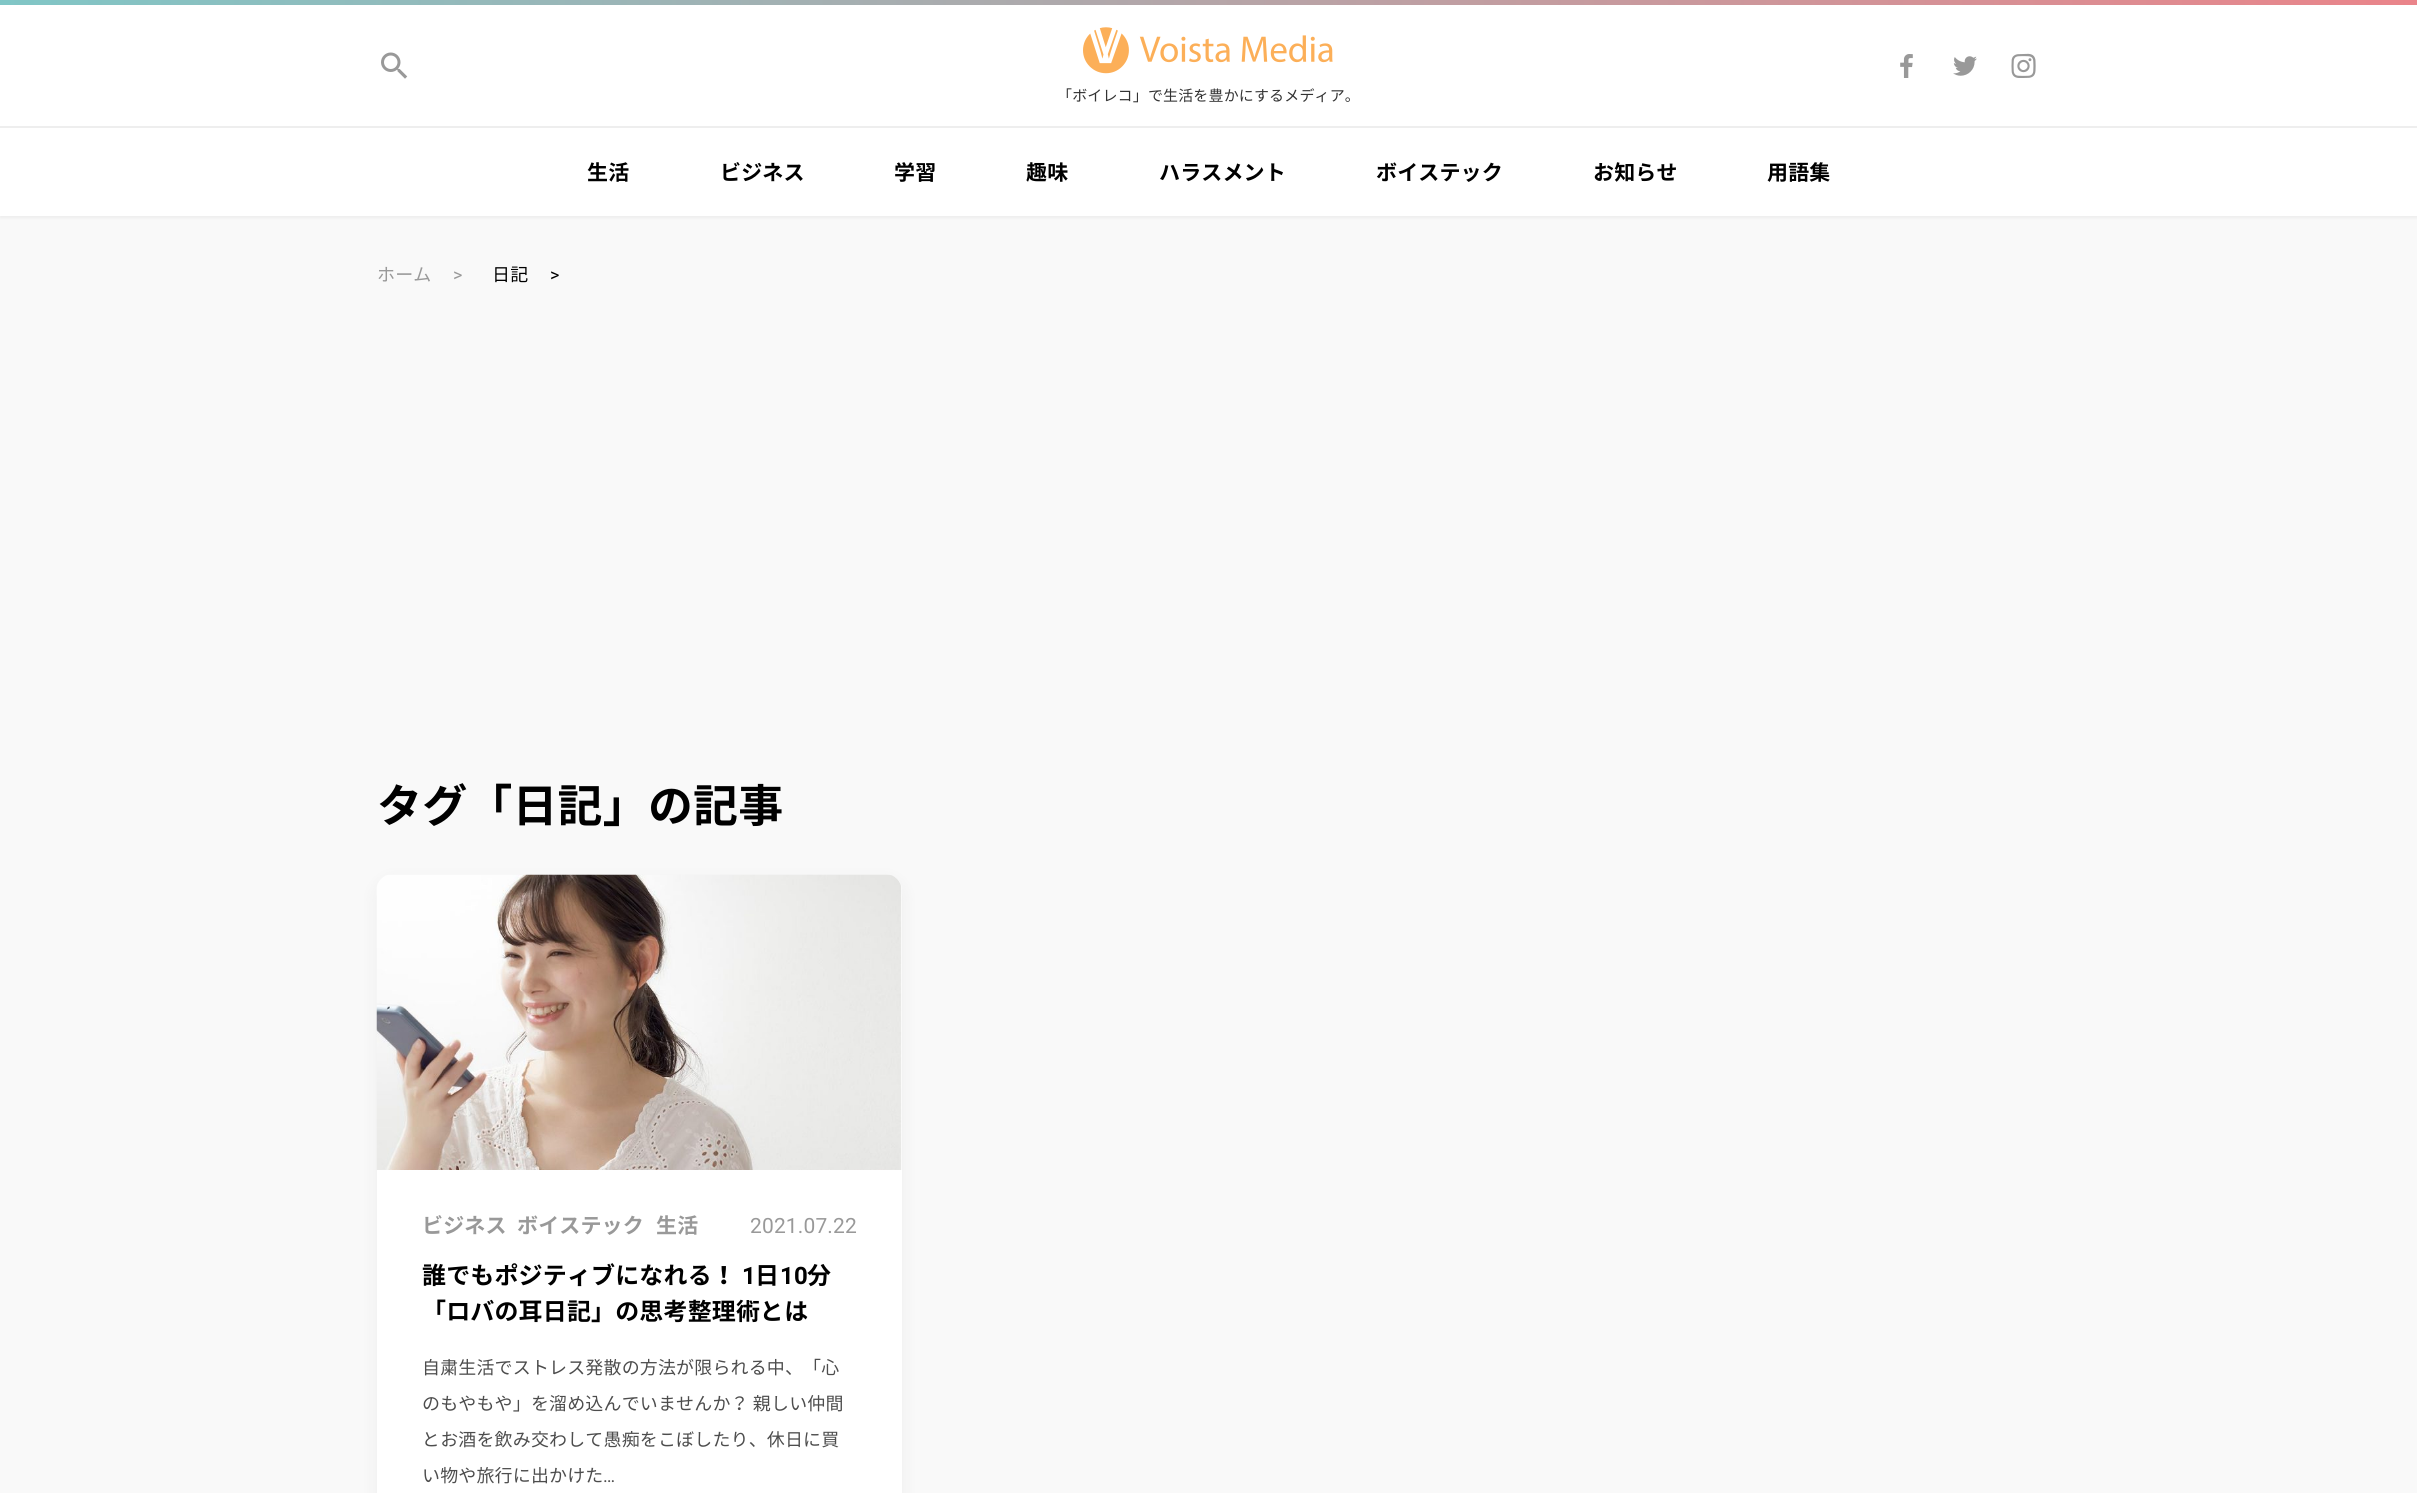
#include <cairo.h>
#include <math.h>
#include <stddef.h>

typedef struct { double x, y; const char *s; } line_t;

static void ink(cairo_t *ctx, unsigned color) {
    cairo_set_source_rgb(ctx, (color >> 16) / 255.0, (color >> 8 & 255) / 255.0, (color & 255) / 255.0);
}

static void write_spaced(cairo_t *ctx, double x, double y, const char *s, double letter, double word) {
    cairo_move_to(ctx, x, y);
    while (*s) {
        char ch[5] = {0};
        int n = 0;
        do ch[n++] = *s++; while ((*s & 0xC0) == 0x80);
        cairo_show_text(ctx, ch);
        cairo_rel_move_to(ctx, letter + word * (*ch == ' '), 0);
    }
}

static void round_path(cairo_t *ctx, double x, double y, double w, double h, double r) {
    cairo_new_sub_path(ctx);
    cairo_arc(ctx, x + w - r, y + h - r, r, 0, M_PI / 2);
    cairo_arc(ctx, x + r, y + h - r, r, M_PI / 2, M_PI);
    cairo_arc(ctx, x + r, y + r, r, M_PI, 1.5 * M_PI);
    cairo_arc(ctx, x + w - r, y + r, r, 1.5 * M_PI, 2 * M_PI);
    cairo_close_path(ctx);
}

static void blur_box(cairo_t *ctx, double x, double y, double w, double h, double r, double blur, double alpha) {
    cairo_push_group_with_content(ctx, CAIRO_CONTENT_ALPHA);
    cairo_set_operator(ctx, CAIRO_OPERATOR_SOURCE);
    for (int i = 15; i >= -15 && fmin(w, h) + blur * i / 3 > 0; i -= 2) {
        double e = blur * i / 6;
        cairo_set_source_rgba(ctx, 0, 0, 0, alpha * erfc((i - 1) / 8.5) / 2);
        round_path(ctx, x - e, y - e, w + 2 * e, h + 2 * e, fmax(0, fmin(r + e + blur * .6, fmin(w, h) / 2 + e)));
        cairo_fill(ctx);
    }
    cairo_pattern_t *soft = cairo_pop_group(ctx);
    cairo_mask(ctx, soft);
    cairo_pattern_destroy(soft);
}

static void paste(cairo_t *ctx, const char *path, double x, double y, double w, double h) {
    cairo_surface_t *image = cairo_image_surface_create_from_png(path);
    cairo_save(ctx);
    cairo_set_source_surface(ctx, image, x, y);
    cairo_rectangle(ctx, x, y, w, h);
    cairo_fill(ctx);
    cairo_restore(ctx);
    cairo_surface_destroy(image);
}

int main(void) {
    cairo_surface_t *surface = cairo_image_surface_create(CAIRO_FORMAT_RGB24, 2417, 1493);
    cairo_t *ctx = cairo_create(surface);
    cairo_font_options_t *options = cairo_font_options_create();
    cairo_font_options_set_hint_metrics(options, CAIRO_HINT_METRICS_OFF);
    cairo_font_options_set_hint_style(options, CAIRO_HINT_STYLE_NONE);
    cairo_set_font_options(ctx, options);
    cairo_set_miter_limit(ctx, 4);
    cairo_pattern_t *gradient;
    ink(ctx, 0xF9F9F9);
    cairo_paint(ctx);
    ink(ctx, 0x000000);
    blur_box(ctx, 0, 2, 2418, 216, 0, 1.5, 0.05);
    ink(ctx, 0xFFFFFF);
    cairo_rectangle(ctx, 0, 5, 2417, 211);
    cairo_fill(ctx);
    gradient = cairo_pattern_create_linear(0, 2.3, 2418, 2.2);
    cairo_pattern_add_color_stop_rgba(gradient, 0, 0.502, 0.776, 0.776, 1);
    cairo_pattern_add_color_stop_rgba(gradient, 1, 0.918, 0.518, 0.541, 1);
    cairo_set_source(ctx, gradient);
    cairo_pattern_destroy(gradient);
    cairo_rectangle(ctx, 0, 0, 2417, 5);
    cairo_fill(ctx);
    paste(ctx, "media/1.png", 381, 52, 27, 27);
    paste(ctx, "media/2.png", 1900, 54, 13, 24);
    paste(ctx, "media/3.png", 1953, 56, 24, 20);
    paste(ctx, "media/4.png", 2011, 53, 25, 25);
    paste(ctx, "media/5.png", 1083, 27, 250, 47);
    cairo_select_font_face(ctx, "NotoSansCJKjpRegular", CAIRO_FONT_SLANT_NORMAL, CAIRO_FONT_WEIGHT_NORMAL);
    cairo_set_font_size(ctx, 15);
    ink(ctx, 0x333333);
    write_spaced(ctx, 1057, 101, "「ボイレコ」で生活を豊かにするメディア。", 0.15, 0);
    ink(ctx, 0xEEEEEE);
    cairo_rectangle(ctx, 0, 126, 2417, 2);
    cairo_fill(ctx);
    cairo_select_font_face(ctx, "Noto Sans CJK JP", CAIRO_FONT_SLANT_NORMAL, CAIRO_FONT_WEIGHT_BOLD);
    cairo_set_font_size(ctx, 21);
    ink(ctx, 0x000000);
    {
        static const line_t items[] = {
            {587, 180, "生活"},
            {720, 180, "ビジネス"},
            {894, 180, "学習"},
            {1026, 180, "趣味"},
            {1159, 180, "ハラスメント"},
            {1376, 180, "ボイステック"},
            {1593, 180, "お知らせ"},
            {1767, 180, "用語集"},
        };
        for (size_t i = 0; i < sizeof items / sizeof *items; i++) {
            write_spaced(ctx, items[i].x, items[i].y, items[i].s, 0.15, 0);
        }
    }
    cairo_select_font_face(ctx, "NotoSansCJKjpRegular", CAIRO_FONT_SLANT_NORMAL, CAIRO_FONT_WEIGHT_NORMAL);
    cairo_set_font_size(ctx, 18);
    ink(ctx, 0x999999);
    write_spaced(ctx, 377, 281, "ホーム", 0.15, 0);
    cairo_select_font_face(ctx, "Roboto", CAIRO_FONT_SLANT_NORMAL, CAIRO_FONT_WEIGHT_NORMAL);
    write_spaced(ctx, 453, 281, ">", 0.15, 0);
    cairo_select_font_face(ctx, "NotoSansCJKjpRegular", CAIRO_FONT_SLANT_NORMAL, CAIRO_FONT_WEIGHT_NORMAL);
    ink(ctx, 0x000000);
    write_spaced(ctx, 492, 281, "日記", 0.15, 0);
    cairo_select_font_face(ctx, "Roboto", CAIRO_FONT_SLANT_NORMAL, CAIRO_FONT_WEIGHT_NORMAL);
    write_spaced(ctx, 550, 281, ">", 0.15, 0);
    cairo_select_font_face(ctx, "Noto Sans CJK JP", CAIRO_FONT_SLANT_NORMAL, CAIRO_FONT_WEIGHT_BOLD);
    cairo_set_font_size(ctx, 45);
    write_spaced(ctx, 377, 822, "タグ「日記」の記事", 0.15, 0);
    ink(ctx, 0x000000);
    blur_box(ctx, 377, 881, 525, 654, 15, 9, 0.05);
    ink(ctx, 0xFFFFFF);
    round_path(ctx, 377, 875, 525, 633, 15);
    cairo_fill(ctx);
    paste(ctx, "media/6.png", 376, 874, 526, 296);
    cairo_set_font_size(ctx, 21);
    ink(ctx, 0x999999);
    {
        static const line_t items[] = {
            {422, 1233, "ビジネス"},
            {517, 1233, "ボイステック"},
            {656, 1233, "生活"},
        };
        for (size_t i = 0; i < sizeof items / sizeof *items; i++) {
            write_spaced(ctx, items[i].x, items[i].y, items[i].s, 0.15, 0);
        }
    }
    cairo_select_font_face(ctx, "Roboto", CAIRO_FONT_SLANT_NORMAL, CAIRO_FONT_WEIGHT_NORMAL);
    write_spaced(ctx, 750, 1233, "2021.07.22", 0.15, 0);
    cairo_select_font_face(ctx, "Noto Sans CJK JP", CAIRO_FONT_SLANT_NORMAL, CAIRO_FONT_WEIGHT_BOLD);
    cairo_set_font_size(ctx, 24);
    ink(ctx, 0x000000);
    write_spaced(ctx, 422, 1284, "誰でもポジティブになれる！", 0.15, 0);
    cairo_select_font_face(ctx, "Roboto", CAIRO_FONT_SLANT_NORMAL, CAIRO_FONT_WEIGHT_BOLD);
    write_spaced(ctx, 742, 1284, "1", 0.15, 0);
    cairo_select_font_face(ctx, "Noto Sans CJK JP", CAIRO_FONT_SLANT_NORMAL, CAIRO_FONT_WEIGHT_BOLD);
    write_spaced(ctx, 755, 1284, "日", 0.15, 0);
    cairo_select_font_face(ctx, "Roboto", CAIRO_FONT_SLANT_NORMAL, CAIRO_FONT_WEIGHT_BOLD);
    write_spaced(ctx, 780, 1284, "10", 0.15, 0);
    cairo_select_font_face(ctx, "Noto Sans CJK JP", CAIRO_FONT_SLANT_NORMAL, CAIRO_FONT_WEIGHT_BOLD);
    write_spaced(ctx, 807, 1284, "分", 0.15, 0);
    write_spaced(ctx, 422, 1320, "「ロバの耳日記」の思考整理術とは", 0.15, 0);
    cairo_select_font_face(ctx, "NotoSansCJKjpRegular", CAIRO_FONT_SLANT_NORMAL, CAIRO_FONT_WEIGHT_NORMAL);
    cairo_set_font_size(ctx, 18);
    ink(ctx, 0x4D4D4D);
    {
        static const line_t items[] = {
            {422, 1374, "自粛生活でストレス発散の方法が限られる中、「心"},
            {422, 1410, "のもやもや」を溜め込んでいませんか？ 親しい仲間"},
            {422, 1446, "とお酒を飲み交わして愚痴をこぼしたり、休日に買"},
            {422, 1482, "い物や旅行に出かけた"},
        };
        for (size_t i = 0; i < sizeof items / sizeof *items; i++) {
            write_spaced(ctx, items[i].x, items[i].y, items[i].s, 0.15, 0);
        }
    }
    cairo_select_font_face(ctx, "Roboto", CAIRO_FONT_SLANT_NORMAL, CAIRO_FONT_WEIGHT_NORMAL);
    write_spaced(ctx, 603, 1482, "…", 0.15, 0);
    cairo_surface_write_to_png(surface, "image.png");
    cairo_font_options_destroy(options);
    cairo_destroy(ctx);
    cairo_surface_destroy(surface);
    return 0;
}
